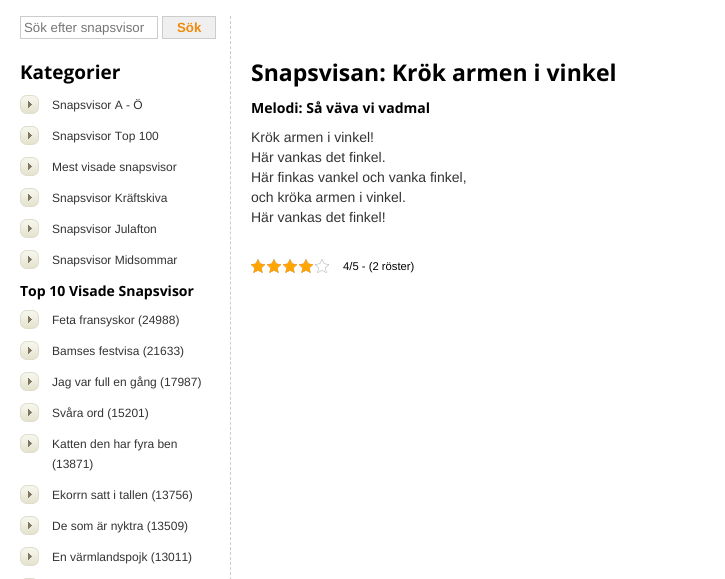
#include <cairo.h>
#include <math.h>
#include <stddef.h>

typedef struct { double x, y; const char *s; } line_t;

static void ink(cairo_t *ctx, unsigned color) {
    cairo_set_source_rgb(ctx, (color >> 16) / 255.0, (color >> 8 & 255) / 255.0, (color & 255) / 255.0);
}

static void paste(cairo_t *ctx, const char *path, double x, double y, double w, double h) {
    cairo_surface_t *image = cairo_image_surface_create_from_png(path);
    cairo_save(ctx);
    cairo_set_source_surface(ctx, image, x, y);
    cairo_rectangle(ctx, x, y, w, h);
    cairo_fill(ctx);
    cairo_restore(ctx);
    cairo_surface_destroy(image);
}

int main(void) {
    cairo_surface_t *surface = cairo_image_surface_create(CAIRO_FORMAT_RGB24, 725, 579);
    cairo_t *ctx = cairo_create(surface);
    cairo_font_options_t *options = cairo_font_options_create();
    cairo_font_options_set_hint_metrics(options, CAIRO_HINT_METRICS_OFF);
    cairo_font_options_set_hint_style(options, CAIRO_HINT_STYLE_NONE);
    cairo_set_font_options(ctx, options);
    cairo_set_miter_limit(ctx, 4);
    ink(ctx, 0xFFFFFF);
    cairo_paint(ctx);
    cairo_new_path(ctx);
    cairo_move_to(ctx, 230.5, 16);
    cairo_line_to(ctx, 230.5, 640);
    ink(ctx, 0xCCCCCC);
    cairo_set_line_width(ctx, 1);
    cairo_set_dash(ctx, (double[]){3, 2.01}, 2, 0);
    cairo_stroke(ctx);
    cairo_rectangle(ctx, 20.5, 16.5, 137, 22);
    cairo_set_dash(ctx, NULL, 0, 0);
    cairo_stroke(ctx);
    cairo_select_font_face(ctx, "Liberation Sans", CAIRO_FONT_SLANT_NORMAL, CAIRO_FONT_WEIGHT_NORMAL);
    cairo_set_font_size(ctx, 13.25);
    ink(ctx, 0x757575);
    cairo_move_to(ctx, 24, 32);
    cairo_show_text(ctx, "Sök efter snapsvisor");
    ink(ctx, 0xEFEFEF);
    cairo_rectangle(ctx, 162.5, 16.5, 53, 22);
    cairo_fill_preserve(ctx);
    ink(ctx, 0xCCCCCC);
    cairo_stroke(ctx);
    cairo_select_font_face(ctx, "Liberation Sans", CAIRO_FONT_SLANT_NORMAL, CAIRO_FONT_WEIGHT_BOLD);
    ink(ctx, 0xF08A0A);
    cairo_move_to(ctx, 177, 32);
    cairo_show_text(ctx, "Sök");
    cairo_select_font_face(ctx, "Open Sans", CAIRO_FONT_SLANT_NORMAL, CAIRO_FONT_WEIGHT_BOLD);
    cairo_set_font_size(ctx, 19);
    ink(ctx, 0x000000);
    cairo_move_to(ctx, 20, 79);
    cairo_show_text(ctx, "Kategorier");
    paste(ctx, "media/1.png", 20, 95, 19, 19);
    cairo_select_font_face(ctx, "Liberation Sans", CAIRO_FONT_SLANT_NORMAL, CAIRO_FONT_WEIGHT_NORMAL);
    cairo_set_font_size(ctx, 12);
    ink(ctx, 0x333333);
    cairo_move_to(ctx, 52, 109);
    cairo_show_text(ctx, "Snapsvisor A - Ö");
    paste(ctx, "media/1.png", 20, 126, 19, 19);
    cairo_move_to(ctx, 52, 140);
    cairo_show_text(ctx, "Snapsvisor Top 100");
    paste(ctx, "media/1.png", 20, 157, 19, 19);
    cairo_move_to(ctx, 52, 171);
    cairo_show_text(ctx, "Mest visade snapsvisor");
    paste(ctx, "media/1.png", 20, 188, 19, 19);
    cairo_move_to(ctx, 52, 202);
    cairo_show_text(ctx, "Snapsvisor Kräftskiva");
    paste(ctx, "media/1.png", 20, 219, 19, 19);
    cairo_move_to(ctx, 52, 233);
    cairo_show_text(ctx, "Snapsvisor Julafton");
    paste(ctx, "media/1.png", 20, 250, 19, 19);
    cairo_move_to(ctx, 52, 264);
    cairo_show_text(ctx, "Snapsvisor Midsommar");
    cairo_select_font_face(ctx, "Open Sans", CAIRO_FONT_SLANT_NORMAL, CAIRO_FONT_WEIGHT_BOLD);
    cairo_set_font_size(ctx, 14);
    ink(ctx, 0x000000);
    cairo_move_to(ctx, 20, 296);
    cairo_show_text(ctx, "Top 10 Visade Snapsvisor");
    paste(ctx, "media/1.png", 20, 310, 19, 19);
    cairo_select_font_face(ctx, "Liberation Sans", CAIRO_FONT_SLANT_NORMAL, CAIRO_FONT_WEIGHT_NORMAL);
    cairo_set_font_size(ctx, 12);
    ink(ctx, 0x333333);
    cairo_move_to(ctx, 52, 324);
    cairo_show_text(ctx, "Feta fransyskor (24988)");
    paste(ctx, "media/1.png", 20, 341, 19, 19);
    cairo_move_to(ctx, 52, 355);
    cairo_show_text(ctx, "Bamses festvisa (21633)");
    paste(ctx, "media/1.png", 20, 372, 19, 19);
    cairo_move_to(ctx, 52, 386);
    cairo_show_text(ctx, "Jag var full en gång (17987)");
    paste(ctx, "media/1.png", 20, 403, 19, 19);
    cairo_move_to(ctx, 52, 417);
    cairo_show_text(ctx, "Svåra ord (15201)");
    paste(ctx, "media/1.png", 20, 434, 19, 19);
    cairo_move_to(ctx, 52, 448);
    cairo_show_text(ctx, "Katten den har fyra ben");
    cairo_move_to(ctx, 52, 468);
    cairo_show_text(ctx, "(13871)");
    paste(ctx, "media/1.png", 20, 485, 19, 19);
    cairo_move_to(ctx, 52, 499);
    cairo_show_text(ctx, "Ekorrn satt i tallen (13756)");
    paste(ctx, "media/1.png", 20, 516, 19, 19);
    cairo_move_to(ctx, 52, 530);
    cairo_show_text(ctx, "De som är nyktra (13509)");
    paste(ctx, "media/1.png", 20, 547, 19, 19);
    cairo_move_to(ctx, 52, 561);
    cairo_show_text(ctx, "En värmlandspojk (13011)");
    paste(ctx, "media/2.png", 23, 578, 13, 1);
    cairo_select_font_face(ctx, "Open Sans", CAIRO_FONT_SLANT_NORMAL, CAIRO_FONT_WEIGHT_BOLD);
    cairo_set_font_size(ctx, 23);
    ink(ctx, 0x000000);
    cairo_move_to(ctx, 251, 81);
    cairo_show_text(ctx, "Snapsvisan: Krök armen i vinkel");
    cairo_set_font_size(ctx, 14);
    cairo_move_to(ctx, 251, 113);
    cairo_show_text(ctx, "Melodi: Så väva vi vadmal");
    cairo_select_font_face(ctx, "Liberation Sans", CAIRO_FONT_SLANT_NORMAL, CAIRO_FONT_WEIGHT_NORMAL);
    ink(ctx, 0x333333);
    {
        static const line_t items[] = {
            {251, 142, "Krök armen i vinkel!"},
            {251, 162, "Här vankas det finkel."},
            {251, 182, "Här finkas vankel och vanka finkel,"},
            {251, 202, "och kröka armen i vinkel."},
            {251, 222, "Här vankas det finkel!"},
        };
        for (size_t i = 0; i < sizeof items / sizeof *items; i++) {
            cairo_move_to(ctx, items[i].x, items[i].y);
            cairo_show_text(ctx, items[i].s);
        }
    }
    paste(ctx, "media/3.png", 251, 259, 14, 14);
    paste(ctx, "media/3.png", 267, 259, 14, 14);
    paste(ctx, "media/3.png", 283, 259, 14, 14);
    paste(ctx, "media/3.png", 299, 259, 14, 14);
    paste(ctx, "media/3.png", 315, 259, 14, 14);
    paste(ctx, "media/4.png", 251, 259, 14, 14);
    paste(ctx, "media/4.png", 267, 259, 14, 14);
    paste(ctx, "media/4.png", 283, 259, 14, 14);
    paste(ctx, "media/4.png", 299, 259, 14, 14);
    cairo_set_font_size(ctx, 11.25);
    ink(ctx, 0x000000);
    cairo_move_to(ctx, 343, 270);
    cairo_show_text(ctx, "4/5 - (2 röster)");
    cairo_surface_write_to_png(surface, "image.png");
    cairo_font_options_destroy(options);
    cairo_destroy(ctx);
    cairo_surface_destroy(surface);
    return 0;
}
